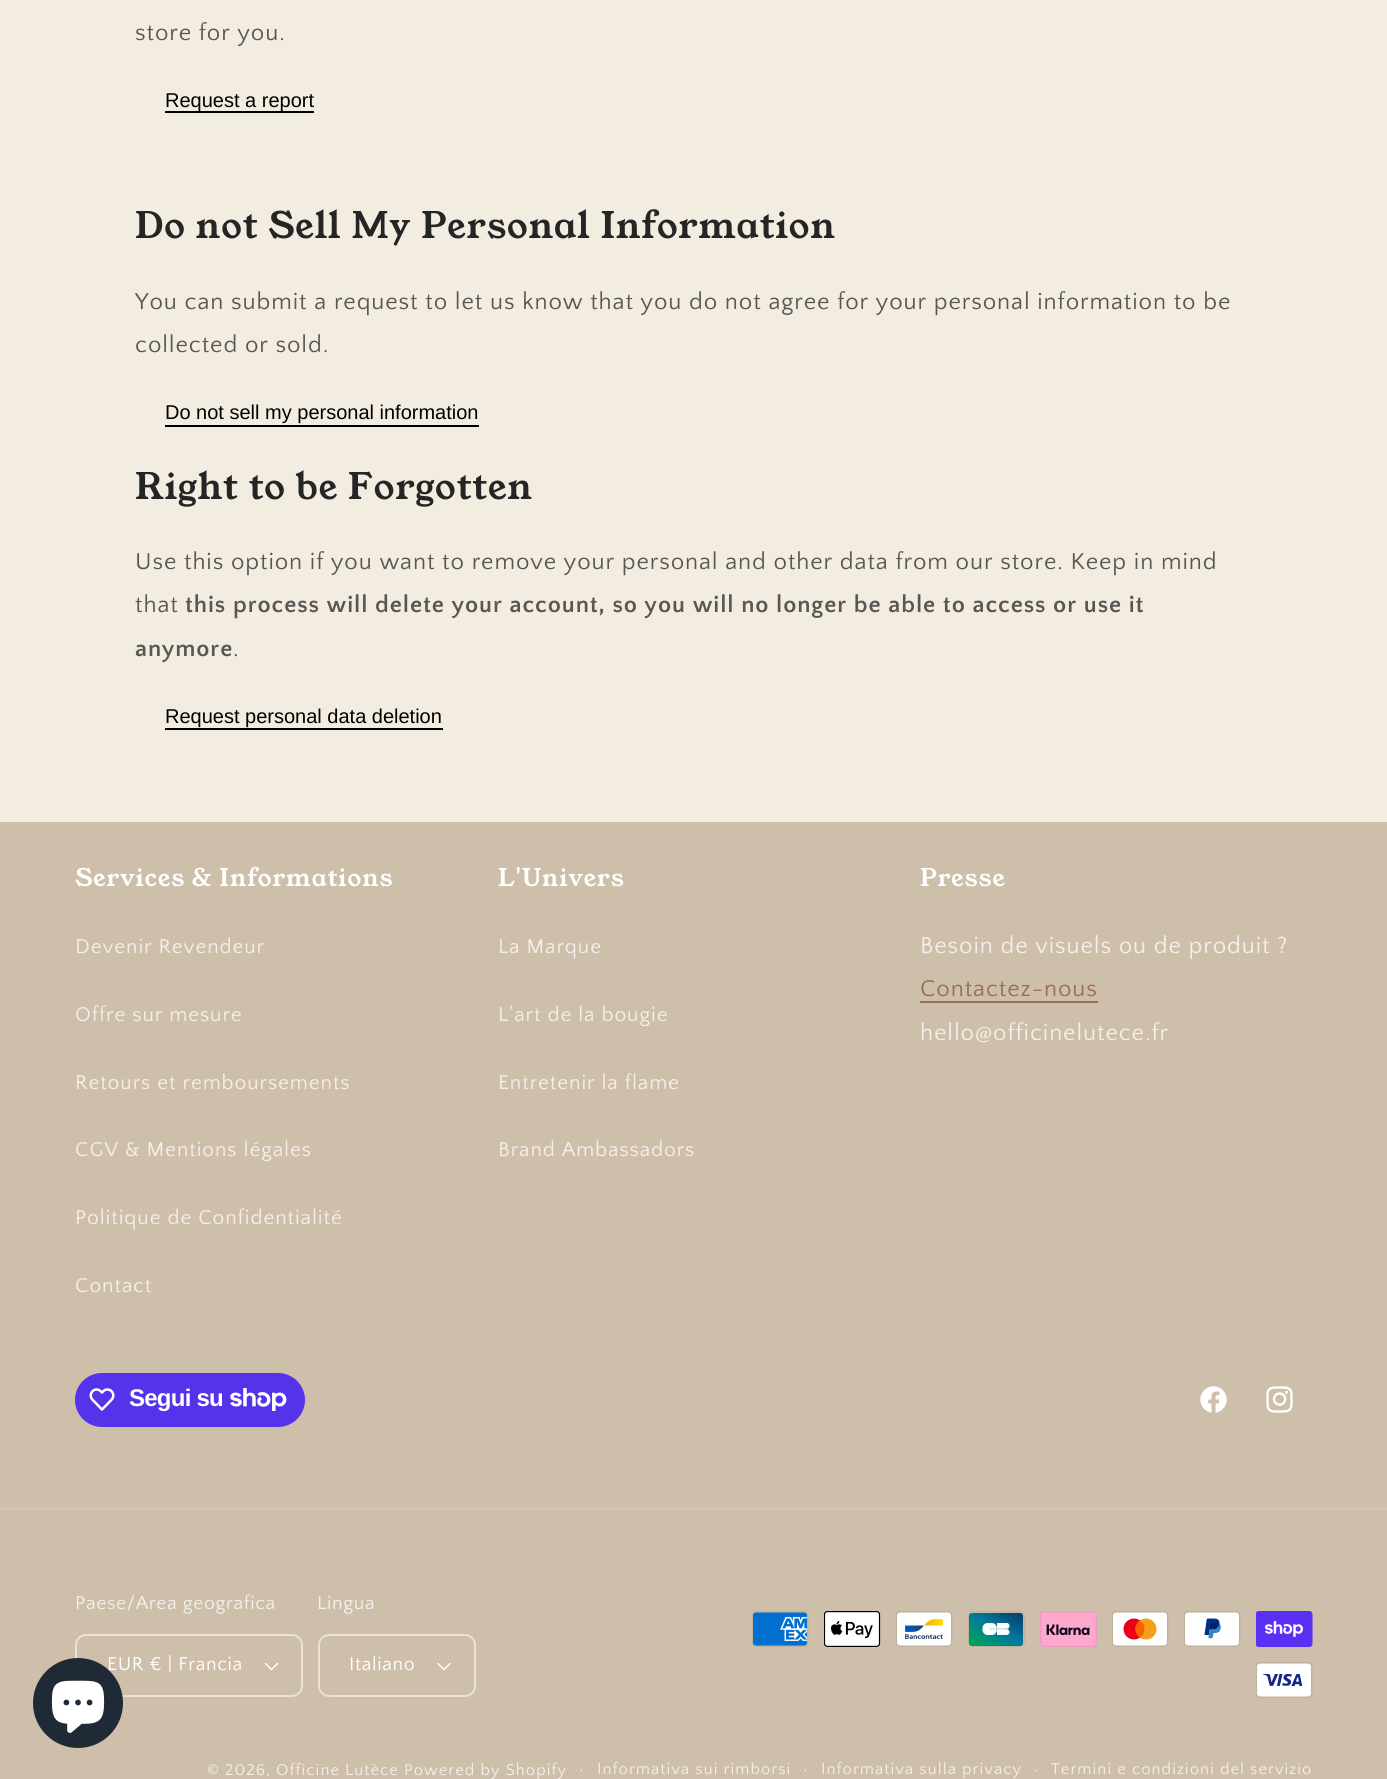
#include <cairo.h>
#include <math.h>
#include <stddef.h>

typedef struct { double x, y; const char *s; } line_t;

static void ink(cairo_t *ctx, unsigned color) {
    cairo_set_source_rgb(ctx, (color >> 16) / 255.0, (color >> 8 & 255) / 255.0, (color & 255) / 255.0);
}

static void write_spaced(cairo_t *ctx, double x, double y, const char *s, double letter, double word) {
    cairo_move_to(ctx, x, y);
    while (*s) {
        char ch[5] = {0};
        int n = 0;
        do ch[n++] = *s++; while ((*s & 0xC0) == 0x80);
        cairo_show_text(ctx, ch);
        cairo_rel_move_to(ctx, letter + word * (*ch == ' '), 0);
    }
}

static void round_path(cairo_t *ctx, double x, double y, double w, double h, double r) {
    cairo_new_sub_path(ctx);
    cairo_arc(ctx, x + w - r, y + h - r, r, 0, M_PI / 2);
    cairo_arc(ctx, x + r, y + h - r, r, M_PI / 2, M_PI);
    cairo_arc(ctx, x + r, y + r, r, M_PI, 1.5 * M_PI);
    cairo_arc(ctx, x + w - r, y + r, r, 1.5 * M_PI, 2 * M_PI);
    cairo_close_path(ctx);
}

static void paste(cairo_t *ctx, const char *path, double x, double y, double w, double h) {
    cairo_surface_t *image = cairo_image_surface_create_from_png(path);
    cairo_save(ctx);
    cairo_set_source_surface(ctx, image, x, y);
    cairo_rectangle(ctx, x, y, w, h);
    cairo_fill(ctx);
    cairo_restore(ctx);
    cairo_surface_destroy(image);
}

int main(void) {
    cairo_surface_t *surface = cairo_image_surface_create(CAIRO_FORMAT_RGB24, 1387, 1779);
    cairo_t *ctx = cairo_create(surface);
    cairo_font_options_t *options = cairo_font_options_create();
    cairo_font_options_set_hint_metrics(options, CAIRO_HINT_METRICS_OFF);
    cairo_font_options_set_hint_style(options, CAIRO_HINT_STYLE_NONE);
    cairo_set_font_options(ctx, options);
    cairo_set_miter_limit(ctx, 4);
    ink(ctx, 0xF3ECE1);
    cairo_paint(ctx);
    cairo_select_font_face(ctx, "Quattrocento Sans", CAIRO_FONT_SLANT_NORMAL, CAIRO_FONT_WEIGHT_NORMAL);
    cairo_set_font_size(ctx, 24);
    ink(ctx, 0x595754);
    write_spaced(ctx, 135, 40, "store for you.", 0.9, 0);
    ink(ctx, 0x000000);
    cairo_rectangle(ctx, 165, 111, 149, 2);
    cairo_fill(ctx);
    cairo_select_font_face(ctx, "Liberation Sans", CAIRO_FONT_SLANT_NORMAL, CAIRO_FONT_WEIGHT_NORMAL);
    cairo_set_font_size(ctx, 20);
    cairo_move_to(ctx, 165, 107);
    cairo_show_text(ctx, "Request a report");
    cairo_select_font_face(ctx, "Young Serif", CAIRO_FONT_SLANT_NORMAL, CAIRO_FONT_WEIGHT_NORMAL);
    cairo_set_font_size(ctx, 36);
    ink(ctx, 0x252525);
    write_spaced(ctx, 135, 238, "Do not Sell My Personal Information", 0.9, 0);
    cairo_select_font_face(ctx, "Quattrocento Sans", CAIRO_FONT_SLANT_NORMAL, CAIRO_FONT_WEIGHT_NORMAL);
    cairo_set_font_size(ctx, 24);
    ink(ctx, 0x595754);
    write_spaced(ctx, 135, 309, "You can submit a request to let us know that you do not agree for your personal information to be", 0.9, 0);
    write_spaced(ctx, 135, 352, "collected or sold.", 0.9, 0);
    ink(ctx, 0x000000);
    cairo_rectangle(ctx, 165, 425, 314, 2);
    cairo_fill(ctx);
    cairo_select_font_face(ctx, "Liberation Sans", CAIRO_FONT_SLANT_NORMAL, CAIRO_FONT_WEIGHT_NORMAL);
    cairo_set_font_size(ctx, 20);
    cairo_move_to(ctx, 165, 419);
    cairo_show_text(ctx, "Do not sell my personal information");
    cairo_select_font_face(ctx, "Young Serif", CAIRO_FONT_SLANT_NORMAL, CAIRO_FONT_WEIGHT_NORMAL);
    cairo_set_font_size(ctx, 36);
    ink(ctx, 0x252525);
    write_spaced(ctx, 135, 499, "Right to be Forgotten", 0.9, 0);
    cairo_select_font_face(ctx, "Quattrocento Sans", CAIRO_FONT_SLANT_NORMAL, CAIRO_FONT_WEIGHT_NORMAL);
    cairo_set_font_size(ctx, 24);
    ink(ctx, 0x595754);
    write_spaced(ctx, 135, 569, "Use this option if you want to remove your personal and other data from our store. Keep in mind", 0.9, 0);
    write_spaced(ctx, 135, 612, "that", 0.9, 0);
    cairo_select_font_face(ctx, "Quattrocento Sans", CAIRO_FONT_SLANT_NORMAL, CAIRO_FONT_WEIGHT_BOLD);
    write_spaced(ctx, 185, 612, "this process will delete your account, so you will no longer be able to access or use it", 0.9, 0);
    write_spaced(ctx, 135, 656, "anymore", 0.9, 0);
    cairo_select_font_face(ctx, "Quattrocento Sans", CAIRO_FONT_SLANT_NORMAL, CAIRO_FONT_WEIGHT_NORMAL);
    write_spaced(ctx, 233, 656, ".", 0.9, 0);
    ink(ctx, 0x000000);
    cairo_rectangle(ctx, 165, 728, 278, 2);
    cairo_fill(ctx);
    cairo_select_font_face(ctx, "Liberation Sans", CAIRO_FONT_SLANT_NORMAL, CAIRO_FONT_WEIGHT_NORMAL);
    cairo_set_font_size(ctx, 20);
    cairo_move_to(ctx, 165, 723);
    cairo_show_text(ctx, "Request personal data deletion");
    ink(ctx, 0xCEBFAA);
    cairo_rectangle(ctx, 0, 822, 1387, 957);
    cairo_fill(ctx);
    cairo_select_font_face(ctx, "Young Serif", CAIRO_FONT_SLANT_NORMAL, CAIRO_FONT_WEIGHT_NORMAL);
    cairo_set_font_size(ctx, 24);
    ink(ctx, 0xFFFFFF);
    write_spaced(ctx, 75, 886, "Services & Informations", 0.9, 0);
    cairo_select_font_face(ctx, "Quattrocento Sans", CAIRO_FONT_SLANT_NORMAL, CAIRO_FONT_WEIGHT_NORMAL);
    cairo_set_font_size(ctx, 21);
    ink(ctx, 0xF3EFEA);
    {
        static const line_t items[] = {
            {75, 953, "Devenir Revendeur"},
            {75, 1021, "Offre sur mesure"},
            {75, 1089, "Retours et remboursements"},
            {75, 1156, "CGV & Mentions légales"},
            {75, 1224, "Politique de Confidentialité"},
            {75, 1292, "Contact"},
        };
        for (size_t i = 0; i < sizeof items / sizeof *items; i++) {
            write_spaced(ctx, items[i].x, items[i].y, items[i].s, 0.9, 0);
        }
    }
    cairo_select_font_face(ctx, "Young Serif", CAIRO_FONT_SLANT_NORMAL, CAIRO_FONT_WEIGHT_NORMAL);
    cairo_set_font_size(ctx, 24);
    ink(ctx, 0xFFFFFF);
    write_spaced(ctx, 498, 886, "L'Univers", 0.9, 0);
    cairo_select_font_face(ctx, "Quattrocento Sans", CAIRO_FONT_SLANT_NORMAL, CAIRO_FONT_WEIGHT_NORMAL);
    cairo_set_font_size(ctx, 21);
    ink(ctx, 0xF3EFEA);
    {
        static const line_t items[] = {
            {498, 953, "La Marque"},
            {498, 1021, "L'art de la bougie"},
            {498, 1089, "Entretenir la flame"},
            {498, 1156, "Brand Ambassadors"},
        };
        for (size_t i = 0; i < sizeof items / sizeof *items; i++) {
            write_spaced(ctx, items[i].x, items[i].y, items[i].s, 0.9, 0);
        }
    }
    cairo_select_font_face(ctx, "Young Serif", CAIRO_FONT_SLANT_NORMAL, CAIRO_FONT_WEIGHT_NORMAL);
    cairo_set_font_size(ctx, 24);
    ink(ctx, 0xFFFFFF);
    write_spaced(ctx, 920, 886, "Presse", 0.9, 0);
    cairo_select_font_face(ctx, "Quattrocento Sans", CAIRO_FONT_SLANT_NORMAL, CAIRO_FONT_WEIGHT_NORMAL);
    ink(ctx, 0xF3EFEA);
    write_spaced(ctx, 920, 953, "Besoin de visuels ou de produit ?", 0.9, 0);
    ink(ctx, 0x986F56);
    write_spaced(ctx, 920, 996, "Contactez-nous", 0.9, 0);
    cairo_rectangle(ctx, 920, 1001, 178, 2);
    cairo_fill(ctx);
    ink(ctx, 0xF3EFEA);
    write_spaced(ctx, 920, 1040, "hello@officinelutece.fr", 0.9, 0);
    ink(ctx, 0x5433EB);
    round_path(ctx, 75, 1373, 230, 54, 27);
    cairo_fill(ctx);
    paste(ctx, "media/1.png", 89, 1388, 26, 23);
    cairo_select_font_face(ctx, "Liberation Sans", CAIRO_FONT_SLANT_NORMAL, CAIRO_FONT_WEIGHT_BOLD);
    ink(ctx, 0xFFFFFF);
    write_spaced(ctx, 129, 1406, "Segui su", -0.75, 0);
    paste(ctx, "media/2.png", 230, 1388, 57, 23);
    paste(ctx, "media/3.png", 1200, 1386, 27, 27);
    paste(ctx, "media/4.png", 1266, 1386, 27, 27);
    ink(ctx, 0xD2C4B1);
    cairo_rectangle(ctx, 0, 1508, 1387, 2);
    cairo_fill(ctx);
    cairo_select_font_face(ctx, "Quattrocento Sans", CAIRO_FONT_SLANT_NORMAL, CAIRO_FONT_WEIGHT_NORMAL);
    cairo_set_font_size(ctx, 19.5);
    ink(ctx, 0xF3EFEA);
    write_spaced(ctx, 75, 1609, "Paese/Area geografica", 0.6, 0);
    paste(ctx, "media/5.png", 264, 1662, 15, 9);
    round_path(ctx, 76, 1635, 226, 61, 10);
    ink(ctx, 0xE9E2D9);
    cairo_stroke(ctx);
    ink(ctx, 0xFFFFFF);
    write_spaced(ctx, 107, 1670, "EUR € | Francia", 0.6, 0);
    ink(ctx, 0xF3EFEA);
    write_spaced(ctx, 317, 1609, "Lingua", 0.6, 0);
    paste(ctx, "media/6.png", 437, 1662, 14, 9);
    round_path(ctx, 319, 1635, 156, 61, 10);
    ink(ctx, 0xE9E2D9);
    cairo_stroke(ctx);
    ink(ctx, 0xFFFFFF);
    write_spaced(ctx, 349, 1670, "Italiano", 0.6, 0);
    paste(ctx, "media/7.png", 752, 1611, 57, 36);
    paste(ctx, "media/8.png", 824, 1611, 57, 36);
    paste(ctx, "media/9.png", 896, 1611, 57, 36);
    paste(ctx, "media/10.png", 968, 1611, 57, 36);
    paste(ctx, "media/11.png", 1040, 1611, 57, 36);
    paste(ctx, "media/12.png", 1112, 1611, 57, 36);
    paste(ctx, "media/13.png", 1184, 1611, 57, 36);
    paste(ctx, "media/14.png", 1256, 1611, 57, 36);
    paste(ctx, "media/15.png", 1256, 1662, 57, 36);
    cairo_set_font_size(ctx, 16.5);
    ink(ctx, 0xF3EFEA);
    write_spaced(ctx, 207, 1775, "© 2026, Officine Lutèce", 1.05, 0);
    write_spaced(ctx, 404, 1775, "Powered by Shopify", 1.05, 0);
    cairo_set_font_size(ctx, 18);
    write_spaced(ctx, 579, 1775, "·", 1.05, 0);
    cairo_set_font_size(ctx, 16.5);
    write_spaced(ctx, 597, 1774, "Informativa sui rimborsi", 1.05, 0);
    cairo_set_font_size(ctx, 18);
    write_spaced(ctx, 803, 1775, "·", 1.05, 0);
    cairo_set_font_size(ctx, 16.5);
    write_spaced(ctx, 821, 1774, "Informativa sulla privacy", 1.05, 0);
    cairo_set_font_size(ctx, 18);
    write_spaced(ctx, 1034, 1775, "·", 1.05, 0);
    cairo_set_font_size(ctx, 16.5);
    write_spaced(ctx, 1051, 1774, "Termini e condizioni del servizio", 1.05, 0);
    ink(ctx, 0x202A36);
    cairo_new_path(ctx);
    cairo_arc(ctx, 78, 1703, 45, 0, 2 * M_PI);
    cairo_fill(ctx);
    paste(ctx, "media/16.png", 51, 1680, 54, 53);
    cairo_surface_write_to_png(surface, "image.png");
    cairo_font_options_destroy(options);
    cairo_destroy(ctx);
    cairo_surface_destroy(surface);
    return 0;
}
